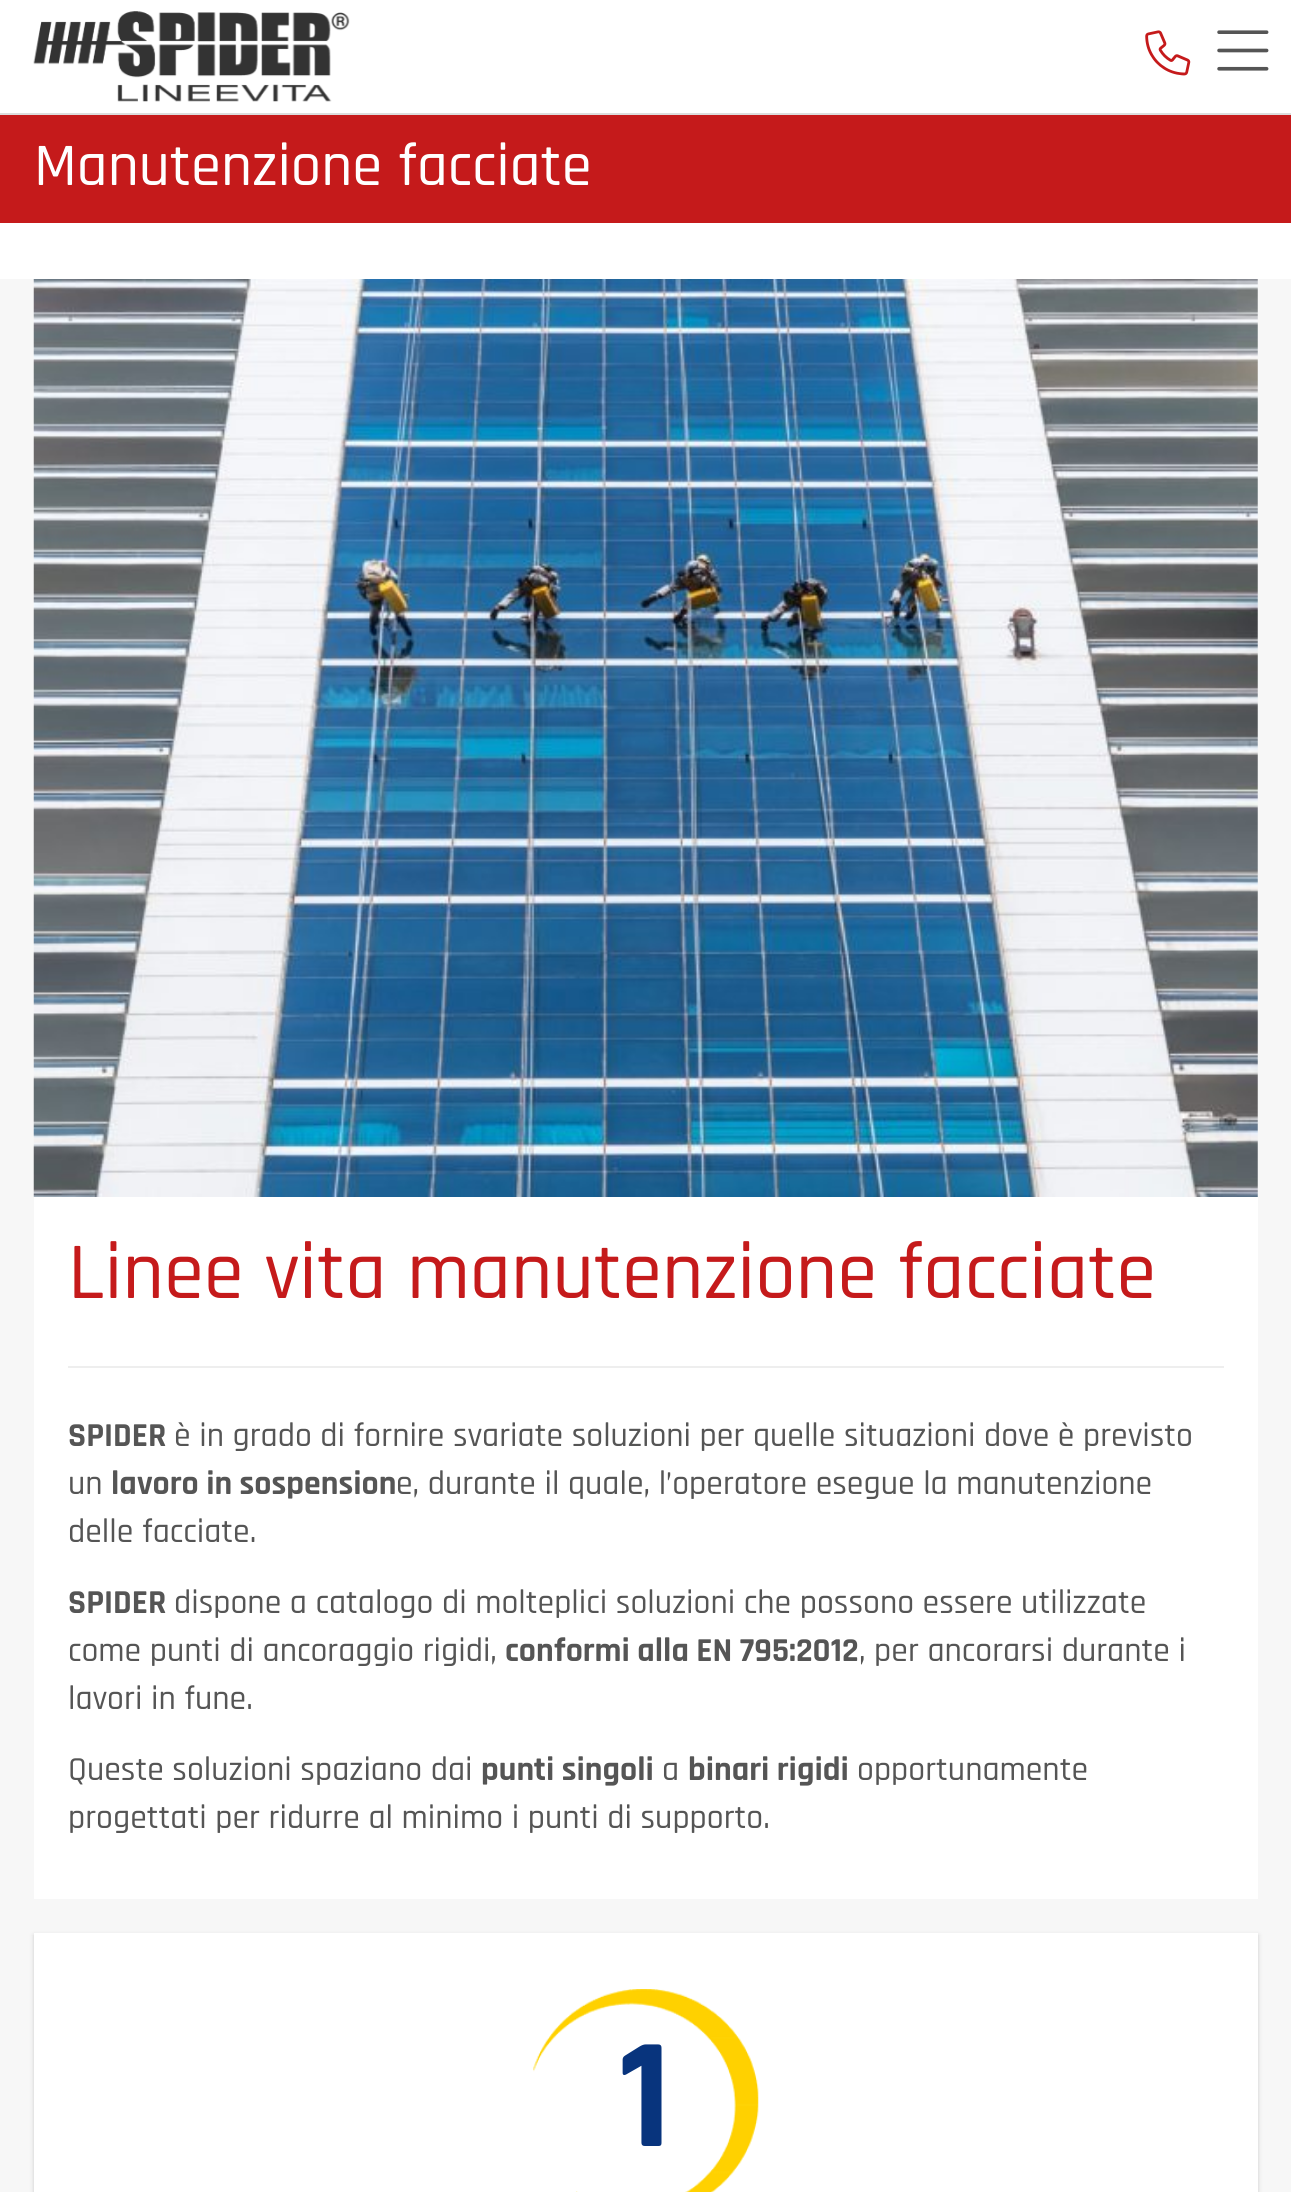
#include <cairo.h>
#include <math.h>
#include <stddef.h>

typedef struct { double x, y; const char *s; } line_t;

static void ink(cairo_t *ctx, unsigned color) {
    cairo_set_source_rgb(ctx, (color >> 16) / 255.0, (color >> 8 & 255) / 255.0, (color & 255) / 255.0);
}

static void round_path(cairo_t *ctx, double x, double y, double w, double h, double r) {
    cairo_new_sub_path(ctx);
    cairo_arc(ctx, x + w - r, y + h - r, r, 0, M_PI / 2);
    cairo_arc(ctx, x + r, y + h - r, r, M_PI / 2, M_PI);
    cairo_arc(ctx, x + r, y + r, r, M_PI, 1.5 * M_PI);
    cairo_arc(ctx, x + w - r, y + r, r, 1.5 * M_PI, 2 * M_PI);
    cairo_close_path(ctx);
}

static void blur_box(cairo_t *ctx, double x, double y, double w, double h, double r, double blur, double alpha) {
    cairo_push_group_with_content(ctx, CAIRO_CONTENT_ALPHA);
    cairo_set_operator(ctx, CAIRO_OPERATOR_SOURCE);
    for (int i = 15; i >= -15 && fmin(w, h) + blur * i / 3 > 0; i -= 2) {
        double e = blur * i / 6;
        cairo_set_source_rgba(ctx, 0, 0, 0, alpha * erfc((i - 1) / 8.5) / 2);
        round_path(ctx, x - e, y - e, w + 2 * e, h + 2 * e, fmax(0, fmin(r + e + blur * .6, fmin(w, h) / 2 + e)));
        cairo_fill(ctx);
    }
    cairo_pattern_t *soft = cairo_pop_group(ctx);
    cairo_mask(ctx, soft);
    cairo_pattern_destroy(soft);
}

static void paste(cairo_t *ctx, const char *path, double x, double y, double w, double h) {
    cairo_surface_t *image = cairo_image_surface_create_from_png(path);
    cairo_save(ctx);
    cairo_set_source_surface(ctx, image, x, y);
    cairo_rectangle(ctx, x, y, w, h);
    cairo_fill(ctx);
    cairo_restore(ctx);
    cairo_surface_destroy(image);
}

int main(void) {
    cairo_surface_t *surface = cairo_image_surface_create(CAIRO_FORMAT_RGB24, 1291, 2192);
    cairo_t *ctx = cairo_create(surface);
    cairo_font_options_t *options = cairo_font_options_create();
    cairo_font_options_set_hint_metrics(options, CAIRO_HINT_METRICS_OFF);
    cairo_font_options_set_hint_style(options, CAIRO_HINT_STYLE_NONE);
    cairo_set_font_options(ctx, options);
    cairo_set_miter_limit(ctx, 4);
    ink(ctx, 0xFFFFFF);
    cairo_paint(ctx);
    ink(ctx, 0xDCDCDC);
    cairo_rectangle(ctx, 0, 113, 1291, 2);
    cairo_fill(ctx);
    paste(ctx, "media/1.png", 33, 11, 317, 91);
    paste(ctx, "media/2.png", 1145, 30, 46, 46);
    paste(ctx, "media/3.png", 1217, 30, 52, 41);
    ink(ctx, 0xC51A1B);
    cairo_rectangle(ctx, 0, 115, 1291, 108);
    cairo_fill(ctx);
    cairo_select_font_face(ctx, "Rajdhani Medium", CAIRO_FONT_SLANT_NORMAL, CAIRO_FONT_WEIGHT_NORMAL);
    cairo_set_font_size(ctx, 60.75);
    ink(ctx, 0xFFFFFF);
    cairo_move_to(ctx, 34, 185);
    cairo_show_text(ctx, "Manutenzione facciate");
    ink(ctx, 0xF7F7F7);
    cairo_rectangle(ctx, 0, 279, 1291, 1913);
    cairo_fill(ctx);
    paste(ctx, "media/4.png", 33, 279, 1225, 918);
    ink(ctx, 0xFFFFFF);
    cairo_rectangle(ctx, 34, 1197, 1224, 702);
    cairo_fill(ctx);
    cairo_set_font_size(ctx, 81);
    ink(ctx, 0xC51A1B);
    cairo_move_to(ctx, 68, 1298);
    cairo_show_text(ctx, "Linee vita manutenzione facciate");
    ink(ctx, 0xEEEEEE);
    cairo_rectangle(ctx, 68, 1366, 1156, 2);
    cairo_fill(ctx);
    cairo_select_font_face(ctx, "Rajdhani", CAIRO_FONT_SLANT_NORMAL, CAIRO_FONT_WEIGHT_BOLD);
    cairo_set_font_size(ctx, 33.75);
    ink(ctx, 0x555555);
    cairo_move_to(ctx, 68, 1446);
    cairo_show_text(ctx, "SPIDER");
    cairo_select_font_face(ctx, "Rajdhani Medium", CAIRO_FONT_SLANT_NORMAL, CAIRO_FONT_WEIGHT_NORMAL);
    cairo_move_to(ctx, 174, 1446);
    cairo_show_text(ctx, "è in grado di fornire svariate soluzioni per quelle situazioni dove è previsto");
    cairo_move_to(ctx, 68, 1494);
    cairo_show_text(ctx, "un");
    cairo_select_font_face(ctx, "Rajdhani", CAIRO_FONT_SLANT_NORMAL, CAIRO_FONT_WEIGHT_BOLD);
    cairo_move_to(ctx, 111, 1494);
    cairo_show_text(ctx, "lavoro in sospension");
    cairo_select_font_face(ctx, "Rajdhani Medium", CAIRO_FONT_SLANT_NORMAL, CAIRO_FONT_WEIGHT_NORMAL);
    cairo_move_to(ctx, 396, 1494);
    cairo_show_text(ctx, "e, durante il quale, l’operatore esegue la manutenzione");
    cairo_move_to(ctx, 68, 1542);
    cairo_show_text(ctx, "delle facciate.");
    cairo_select_font_face(ctx, "Rajdhani", CAIRO_FONT_SLANT_NORMAL, CAIRO_FONT_WEIGHT_BOLD);
    cairo_move_to(ctx, 68, 1613);
    cairo_show_text(ctx, "SPIDER");
    cairo_select_font_face(ctx, "Rajdhani Medium", CAIRO_FONT_SLANT_NORMAL, CAIRO_FONT_WEIGHT_NORMAL);
    cairo_move_to(ctx, 174, 1613);
    cairo_show_text(ctx, "dispone a catalogo di molteplici soluzioni che possono essere utilizzate");
    cairo_move_to(ctx, 68, 1661);
    cairo_show_text(ctx, "come punti di ancoraggio rigidi,");
    cairo_select_font_face(ctx, "Rajdhani", CAIRO_FONT_SLANT_NORMAL, CAIRO_FONT_WEIGHT_BOLD);
    cairo_move_to(ctx, 505, 1661);
    cairo_show_text(ctx, "conformi alla EN 795:2012");
    cairo_select_font_face(ctx, "Rajdhani Medium", CAIRO_FONT_SLANT_NORMAL, CAIRO_FONT_WEIGHT_NORMAL);
    {
        static const line_t items[] = {
            {859, 1661, ", per ancorarsi durante i"},
            {68, 1709, "lavori in fune."},
            {68, 1780, "Queste soluzioni spaziano dai"},
        };
        for (size_t i = 0; i < sizeof items / sizeof *items; i++) {
            cairo_move_to(ctx, items[i].x, items[i].y);
            cairo_show_text(ctx, items[i].s);
        }
    }
    cairo_select_font_face(ctx, "Rajdhani", CAIRO_FONT_SLANT_NORMAL, CAIRO_FONT_WEIGHT_BOLD);
    cairo_move_to(ctx, 481, 1780);
    cairo_show_text(ctx, "punti singoli");
    cairo_select_font_face(ctx, "Rajdhani Medium", CAIRO_FONT_SLANT_NORMAL, CAIRO_FONT_WEIGHT_NORMAL);
    cairo_move_to(ctx, 662, 1780);
    cairo_show_text(ctx, "a");
    cairo_select_font_face(ctx, "Rajdhani", CAIRO_FONT_SLANT_NORMAL, CAIRO_FONT_WEIGHT_BOLD);
    cairo_move_to(ctx, 688, 1780);
    cairo_show_text(ctx, "binari rigidi");
    cairo_select_font_face(ctx, "Rajdhani Medium", CAIRO_FONT_SLANT_NORMAL, CAIRO_FONT_WEIGHT_NORMAL);
    cairo_move_to(ctx, 857, 1780);
    cairo_show_text(ctx, "opportunamente");
    cairo_move_to(ctx, 68, 1828);
    cairo_show_text(ctx, "progettati per ridurre al minimo i punti di supporto.");
    ink(ctx, 0x000000);
    blur_box(ctx, 34, 1935, 1224, 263, 0, 2, 0.12);
    blur_box(ctx, 34, 1935, 1224, 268, 0, 3.5, 0.06);
    ink(ctx, 0xFFFFFF);
    cairo_rectangle(ctx, 34, 1933, 1224, 259);
    cairo_fill(ctx);
    paste(ctx, "media/5.png", 533, 1989, 226, 203);
    cairo_select_font_face(ctx, "Rajdhani", CAIRO_FONT_SLANT_NORMAL, CAIRO_FONT_WEIGHT_BOLD);
    cairo_set_font_size(ctx, 158);
    ink(ctx, 0x08347D);
    cairo_move_to(ctx, 619, 2146);
    cairo_show_text(ctx, "1");
    cairo_surface_write_to_png(surface, "image.png");
    cairo_font_options_destroy(options);
    cairo_destroy(ctx);
    cairo_surface_destroy(surface);
    return 0;
}
